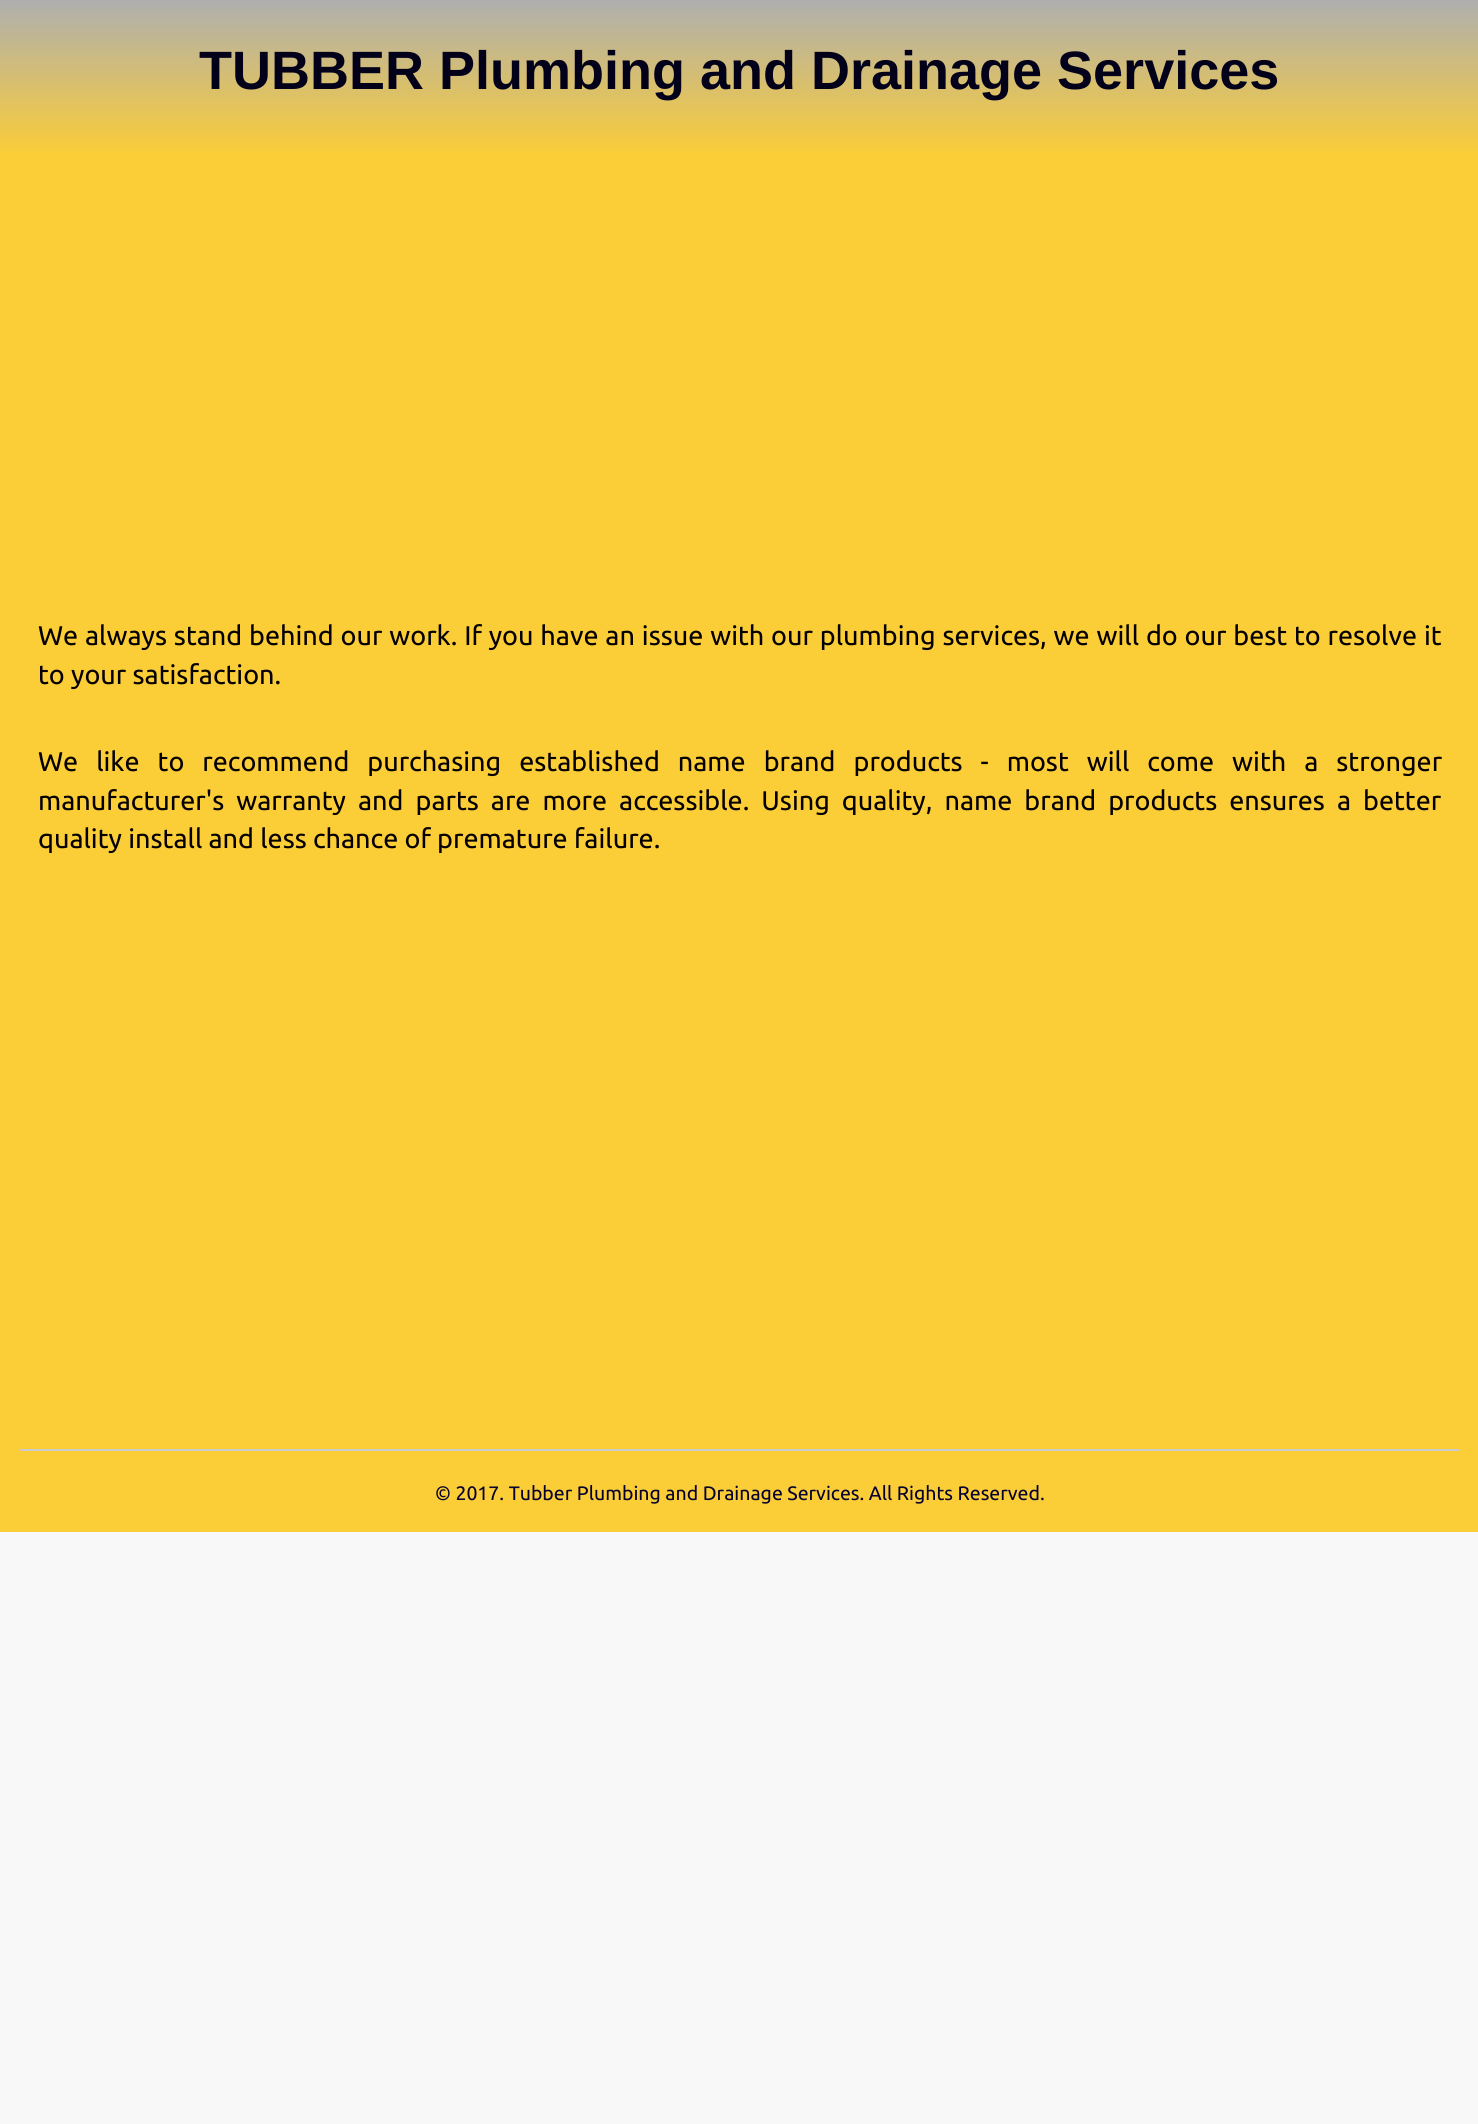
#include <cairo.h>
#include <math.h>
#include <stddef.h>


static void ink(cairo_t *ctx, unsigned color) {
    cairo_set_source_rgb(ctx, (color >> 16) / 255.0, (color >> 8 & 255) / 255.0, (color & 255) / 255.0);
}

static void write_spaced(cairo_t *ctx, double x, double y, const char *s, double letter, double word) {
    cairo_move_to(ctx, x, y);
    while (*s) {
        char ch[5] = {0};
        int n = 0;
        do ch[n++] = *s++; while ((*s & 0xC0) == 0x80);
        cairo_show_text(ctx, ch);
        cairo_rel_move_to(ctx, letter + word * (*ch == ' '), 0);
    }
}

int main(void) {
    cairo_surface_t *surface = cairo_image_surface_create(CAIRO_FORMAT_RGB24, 1478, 2124);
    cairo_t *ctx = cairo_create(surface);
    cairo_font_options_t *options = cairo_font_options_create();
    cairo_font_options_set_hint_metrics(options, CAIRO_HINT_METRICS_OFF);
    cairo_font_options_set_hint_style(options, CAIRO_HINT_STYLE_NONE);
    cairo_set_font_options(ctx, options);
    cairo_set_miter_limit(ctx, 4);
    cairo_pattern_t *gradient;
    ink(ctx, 0xF8F8F9);
    cairo_paint(ctx);
    gradient = cairo_pattern_create_linear(740, 0, 740, 155);
    cairo_pattern_add_color_stop_rgba(gradient, 0, 0.686, 0.686, 0.686, 1);
    cairo_pattern_add_color_stop_rgba(gradient, 1, 0.984, 0.804, 0.216, 1);
    cairo_set_source(ctx, gradient);
    cairo_pattern_destroy(gradient);
    cairo_rectangle(ctx, 0, 0, 1478, 155);
    cairo_fill(ctx);
    cairo_select_font_face(ctx, "Liberation Sans", CAIRO_FONT_SLANT_NORMAL, CAIRO_FONT_WEIGHT_BOLD);
    cairo_set_font_size(ctx, 54);
    ink(ctx, 0x030119);
    cairo_move_to(ctx, 199, 89);
    cairo_show_text(ctx, "TUBBER Plumbing and Drainage Services");
    ink(ctx, 0xFBCD37);
    cairo_rectangle(ctx, 0, 155, 1478, 1377);
    cairo_fill(ctx);
    cairo_select_font_face(ctx, "Ubuntu", CAIRO_FONT_SLANT_NORMAL, CAIRO_FONT_WEIGHT_NORMAL);
    cairo_set_font_size(ctx, 27);
    ink(ctx, 0x050000);
    write_spaced(ctx, 38, 645, "We always stand behind our work. If you have an issue with our plumbing services, we will do our best to resolve it", 0, 0.6);
    cairo_move_to(ctx, 38, 684);
    cairo_show_text(ctx, "to your satisfaction.");
    write_spaced(ctx, 38, 771, "We like to recommend purchasing established name brand products - most will come with a stronger", 0, 11.75);
    write_spaced(ctx, 38, 810, "manufacturer's warranty and parts are more accessible. Using quality, name brand products ensures a better", 0, 5.75);
    cairo_move_to(ctx, 38, 848);
    cairo_show_text(ctx, "quality install and less chance of premature failure.");
    ink(ctx, 0xCCCCCC);
    cairo_rectangle(ctx, 20, 1449, 1440, 2);
    cairo_fill(ctx);
    cairo_set_font_size(ctx, 19.5);
    ink(ctx, 0x06012D);
    cairo_move_to(ctx, 435, 1500);
    cairo_show_text(ctx, "© 2017. Tubber Plumbing and Drainage Services. All Rights Reserved.");
    cairo_surface_write_to_png(surface, "image.png");
    cairo_font_options_destroy(options);
    cairo_destroy(ctx);
    cairo_surface_destroy(surface);
    return 0;
}
